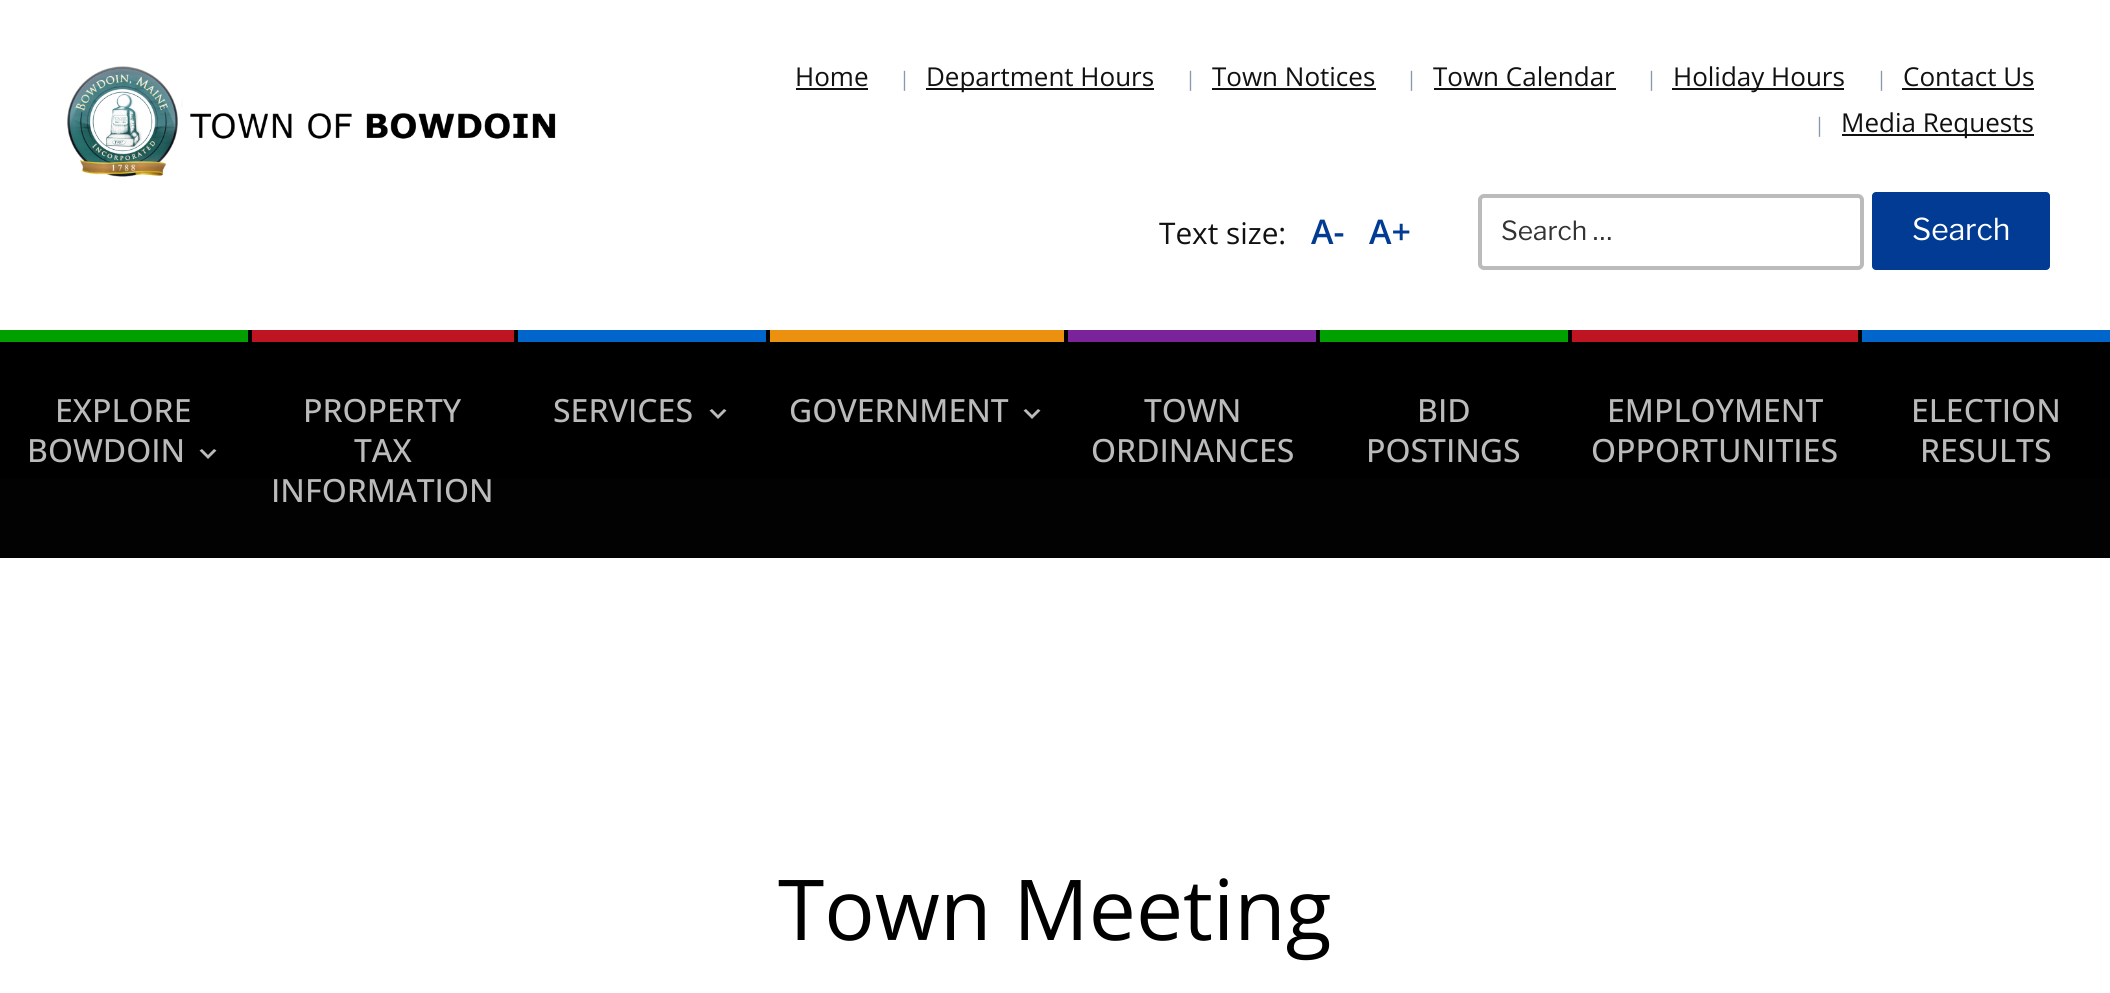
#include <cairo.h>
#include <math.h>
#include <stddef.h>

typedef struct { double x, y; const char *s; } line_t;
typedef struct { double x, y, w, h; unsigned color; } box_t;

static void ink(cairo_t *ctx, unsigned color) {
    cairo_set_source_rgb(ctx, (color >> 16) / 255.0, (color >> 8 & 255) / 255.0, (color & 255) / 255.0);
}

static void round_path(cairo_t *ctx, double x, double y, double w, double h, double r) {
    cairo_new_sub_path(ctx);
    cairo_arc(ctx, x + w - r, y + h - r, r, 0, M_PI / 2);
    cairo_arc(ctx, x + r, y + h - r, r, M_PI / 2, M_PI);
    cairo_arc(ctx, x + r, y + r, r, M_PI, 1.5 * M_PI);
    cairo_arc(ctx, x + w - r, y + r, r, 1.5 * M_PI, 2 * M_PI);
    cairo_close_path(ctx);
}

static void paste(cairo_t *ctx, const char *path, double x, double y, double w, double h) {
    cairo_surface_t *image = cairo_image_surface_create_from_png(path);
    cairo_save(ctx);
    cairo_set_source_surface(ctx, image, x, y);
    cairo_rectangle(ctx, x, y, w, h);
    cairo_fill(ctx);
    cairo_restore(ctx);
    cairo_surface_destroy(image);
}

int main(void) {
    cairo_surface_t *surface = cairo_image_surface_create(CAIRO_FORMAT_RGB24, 2110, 993);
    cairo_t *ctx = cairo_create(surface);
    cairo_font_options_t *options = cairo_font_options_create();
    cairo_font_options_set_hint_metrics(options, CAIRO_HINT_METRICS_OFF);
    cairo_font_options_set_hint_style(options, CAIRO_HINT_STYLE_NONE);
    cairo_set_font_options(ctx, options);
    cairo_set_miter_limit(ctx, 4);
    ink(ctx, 0xFFFFFF);
    cairo_paint(ctx);
    paste(ctx, "media/1.png", 60, 66, 496, 117);
    cairo_select_font_face(ctx, "Open Sans", CAIRO_FONT_SLANT_NORMAL, CAIRO_FONT_WEIGHT_NORMAL);
    cairo_set_font_size(ctx, 26);
    ink(ctx, 0x111111);
    cairo_move_to(ctx, 795, 86);
    cairo_show_text(ctx, "Home");
    cairo_rectangle(ctx, 796, 88, 72, 2);
    cairo_fill(ctx);
    cairo_set_font_size(ctx, 20);
    ink(ctx, 0x8898AF);
    cairo_move_to(ctx, 899, 86);
    cairo_show_text(ctx, "|");
    ink(ctx, 0x111111);
    cairo_rectangle(ctx, 926, 88, 228, 2);
    cairo_fill(ctx);
    cairo_set_font_size(ctx, 26);
    cairo_move_to(ctx, 926, 86);
    cairo_show_text(ctx, "Department Hours");
    cairo_set_font_size(ctx, 20);
    ink(ctx, 0x8898AF);
    cairo_move_to(ctx, 1185, 86);
    cairo_show_text(ctx, "|");
    cairo_set_font_size(ctx, 26);
    ink(ctx, 0x111111);
    cairo_move_to(ctx, 1212, 86);
    cairo_show_text(ctx, "Town Notices");
    cairo_rectangle(ctx, 1212, 88, 164, 2);
    cairo_fill(ctx);
    cairo_set_font_size(ctx, 20);
    ink(ctx, 0x8898AF);
    cairo_move_to(ctx, 1406, 86);
    cairo_show_text(ctx, "|");
    cairo_set_font_size(ctx, 26);
    ink(ctx, 0x111111);
    cairo_move_to(ctx, 1433, 86);
    cairo_show_text(ctx, "Town Calendar");
    cairo_rectangle(ctx, 1434, 88, 182, 2);
    cairo_fill(ctx);
    cairo_set_font_size(ctx, 20);
    ink(ctx, 0x8898AF);
    cairo_move_to(ctx, 1646, 86);
    cairo_show_text(ctx, "|");
    ink(ctx, 0x111111);
    cairo_rectangle(ctx, 1672, 88, 172, 2);
    cairo_fill(ctx);
    cairo_set_font_size(ctx, 26);
    cairo_move_to(ctx, 1673, 86);
    cairo_show_text(ctx, "Holiday Hours");
    cairo_set_font_size(ctx, 20);
    ink(ctx, 0x8898AF);
    cairo_move_to(ctx, 1876, 86);
    cairo_show_text(ctx, "|");
    cairo_set_font_size(ctx, 26);
    ink(ctx, 0x111111);
    cairo_move_to(ctx, 1903, 86);
    cairo_show_text(ctx, "Contact Us");
    cairo_rectangle(ctx, 1902, 88, 132, 2);
    cairo_fill(ctx);
    cairo_set_font_size(ctx, 20);
    ink(ctx, 0x8898AF);
    cairo_move_to(ctx, 1814, 132);
    cairo_show_text(ctx, "|");
    ink(ctx, 0x111111);
    cairo_rectangle(ctx, 1842, 134, 192, 2);
    cairo_fill(ctx);
    cairo_set_font_size(ctx, 26);
    cairo_move_to(ctx, 1841, 132);
    cairo_show_text(ctx, "Media Requests");
    cairo_set_font_size(ctx, 29.75);
    cairo_move_to(ctx, 1159, 244);
    cairo_show_text(ctx, "Text size:");
    cairo_select_font_face(ctx, "Open Sans SemiBold", CAIRO_FONT_SLANT_NORMAL, CAIRO_FONT_WEIGHT_NORMAL);
    cairo_set_font_size(ctx, 34);
    ink(ctx, 0x013B93);
    cairo_move_to(ctx, 1311, 244);
    cairo_show_text(ctx, "A-");
    cairo_move_to(ctx, 1369, 244);
    cairo_show_text(ctx, "A+");
    round_path(ctx, 1480, 196, 382, 72, 4);
    ink(ctx, 0xBBBBBB);
    cairo_set_line_width(ctx, 4);
    cairo_stroke(ctx);
    cairo_select_font_face(ctx, "Libre Franklin", CAIRO_FONT_SLANT_NORMAL, CAIRO_FONT_WEIGHT_NORMAL);
    cairo_set_font_size(ctx, 26.25);
    ink(ctx, 0x333333);
    cairo_move_to(ctx, 1501, 240);
    cairo_show_text(ctx, "Search …");
    ink(ctx, 0x013B93);
    round_path(ctx, 1872, 192, 178, 78, 4);
    cairo_fill(ctx);
    cairo_set_font_size(ctx, 30);
    ink(ctx, 0xFFFFFF);
    cairo_move_to(ctx, 1912, 240);
    cairo_show_text(ctx, "Search");
    {
        static const box_t items[] = {
            {0, 478, 2110, 80, 0x020202},
            {248, 330, 4, 148, 0x000000},
            {0, 342, 248, 136, 0x000000},
            {0, 330, 248, 12, 0x00A000},
        };
        for (size_t i = 0; i < sizeof items / sizeof *items; i++) {
            ink(ctx, items[i].color);
            cairo_rectangle(ctx, items[i].x, items[i].y, items[i].w, items[i].h);
            cairo_fill(ctx);
        }
    }
    cairo_select_font_face(ctx, "Open Sans Medium", CAIRO_FONT_SLANT_NORMAL, CAIRO_FONT_WEIGHT_NORMAL);
    cairo_set_font_size(ctx, 32);
    ink(ctx, 0xBBBBBB);
    cairo_move_to(ctx, 55, 422);
    cairo_show_text(ctx, "EXPLORE");
    cairo_move_to(ctx, 27, 462);
    cairo_show_text(ctx, "BOWDOIN");
    cairo_new_path(ctx);
    cairo_move_to(ctx, 202, 449);
    cairo_line_to(ctx, 208, 455);
    cairo_line_to(ctx, 214, 449);
    cairo_line_to(ctx, 216.5, 450.5);
    cairo_line_to(ctx, 208, 459);
    cairo_line_to(ctx, 199.5, 450.5);
    cairo_close_path(ctx);
    cairo_fill(ctx);
    {
        static const box_t items[] = {
            {514, 330, 4, 148, 0x000000},
            {252, 342, 262, 136, 0x000000},
            {252, 330, 262, 12, 0xBF1522},
        };
        for (size_t i = 0; i < sizeof items / sizeof *items; i++) {
            ink(ctx, items[i].color);
            cairo_rectangle(ctx, items[i].x, items[i].y, items[i].w, items[i].h);
            cairo_fill(ctx);
        }
    }
    ink(ctx, 0xBBBBBB);
    {
        static const line_t items[] = {
            {303, 422, "PROPERTY"},
            {354, 462, "TAX"},
            {271, 502, "INFORMATION"},
        };
        for (size_t i = 0; i < sizeof items / sizeof *items; i++) {
            cairo_move_to(ctx, items[i].x, items[i].y);
            cairo_show_text(ctx, items[i].s);
        }
    }
    {
        static const box_t items[] = {
            {766, 330, 4, 148, 0x000000},
            {518, 342, 248, 136, 0x000000},
            {518, 330, 248, 12, 0x0066CC},
        };
        for (size_t i = 0; i < sizeof items / sizeof *items; i++) {
            ink(ctx, items[i].color);
            cairo_rectangle(ctx, items[i].x, items[i].y, items[i].w, items[i].h);
            cairo_fill(ctx);
        }
    }
    ink(ctx, 0xBBBBBB);
    cairo_move_to(ctx, 553, 422);
    cairo_show_text(ctx, "SERVICES");
    cairo_new_path(ctx);
    cairo_move_to(ctx, 712, 409);
    cairo_line_to(ctx, 718, 415);
    cairo_line_to(ctx, 724, 409);
    cairo_line_to(ctx, 726.5, 410.5);
    cairo_line_to(ctx, 718, 419);
    cairo_line_to(ctx, 709.5, 410.5);
    cairo_close_path(ctx);
    cairo_fill(ctx);
    {
        static const box_t items[] = {
            {1064, 330, 4, 148, 0x000000},
            {770, 342, 294, 136, 0x000000},
            {770, 330, 294, 12, 0xEC900F},
        };
        for (size_t i = 0; i < sizeof items / sizeof *items; i++) {
            ink(ctx, items[i].color);
            cairo_rectangle(ctx, items[i].x, items[i].y, items[i].w, items[i].h);
            cairo_fill(ctx);
        }
    }
    ink(ctx, 0xBBBBBB);
    cairo_move_to(ctx, 789, 422);
    cairo_show_text(ctx, "GOVERNMENT");
    cairo_new_path(ctx);
    cairo_move_to(ctx, 1026, 409);
    cairo_line_to(ctx, 1032, 415);
    cairo_line_to(ctx, 1038, 409);
    cairo_line_to(ctx, 1040.5, 410.5);
    cairo_line_to(ctx, 1032, 419);
    cairo_line_to(ctx, 1023.5, 410.5);
    cairo_close_path(ctx);
    cairo_fill(ctx);
    {
        static const box_t items[] = {
            {1316, 330, 4, 148, 0x000000},
            {1068, 342, 248, 136, 0x000000},
            {1068, 330, 248, 12, 0x7B2398},
        };
        for (size_t i = 0; i < sizeof items / sizeof *items; i++) {
            ink(ctx, items[i].color);
            cairo_rectangle(ctx, items[i].x, items[i].y, items[i].w, items[i].h);
            cairo_fill(ctx);
        }
    }
    ink(ctx, 0xBBBBBB);
    cairo_move_to(ctx, 1144, 422);
    cairo_show_text(ctx, "TOWN");
    cairo_move_to(ctx, 1091, 462);
    cairo_show_text(ctx, "ORDINANCES");
    {
        static const box_t items[] = {
            {1568, 330, 4, 148, 0x000000},
            {1320, 342, 248, 136, 0x000000},
            {1320, 330, 248, 12, 0x00A000},
        };
        for (size_t i = 0; i < sizeof items / sizeof *items; i++) {
            ink(ctx, items[i].color);
            cairo_rectangle(ctx, items[i].x, items[i].y, items[i].w, items[i].h);
            cairo_fill(ctx);
        }
    }
    ink(ctx, 0xBBBBBB);
    cairo_move_to(ctx, 1417, 422);
    cairo_show_text(ctx, "BID");
    cairo_move_to(ctx, 1366, 462);
    cairo_show_text(ctx, "POSTINGS");
    {
        static const box_t items[] = {
            {1858, 330, 4, 148, 0x000000},
            {1572, 342, 286, 136, 0x000000},
            {1572, 330, 286, 12, 0xBF1522},
        };
        for (size_t i = 0; i < sizeof items / sizeof *items; i++) {
            ink(ctx, items[i].color);
            cairo_rectangle(ctx, items[i].x, items[i].y, items[i].w, items[i].h);
            cairo_fill(ctx);
        }
    }
    ink(ctx, 0xBBBBBB);
    cairo_move_to(ctx, 1607, 422);
    cairo_show_text(ctx, "EMPLOYMENT");
    cairo_move_to(ctx, 1591, 462);
    cairo_show_text(ctx, "OPPORTUNITIES");
    ink(ctx, 0x000000);
    cairo_rectangle(ctx, 1862, 342, 248, 136);
    cairo_fill(ctx);
    ink(ctx, 0x0066CC);
    cairo_rectangle(ctx, 1862, 330, 248, 12);
    cairo_fill(ctx);
    ink(ctx, 0xBBBBBB);
    cairo_move_to(ctx, 1911, 422);
    cairo_show_text(ctx, "ELECTION");
    cairo_move_to(ctx, 1920, 462);
    cairo_show_text(ctx, "RESULTS");
    cairo_select_font_face(ctx, "Open Sans", CAIRO_FONT_SLANT_NORMAL, CAIRO_FONT_WEIGHT_NORMAL);
    cairo_set_font_size(ctx, 84);
    ink(ctx, 0x000000);
    cairo_move_to(ctx, 778, 940);
    cairo_show_text(ctx, "Town Meeting");
    cairo_surface_write_to_png(surface, "image.png");
    cairo_font_options_destroy(options);
    cairo_destroy(ctx);
    cairo_surface_destroy(surface);
    return 0;
}
